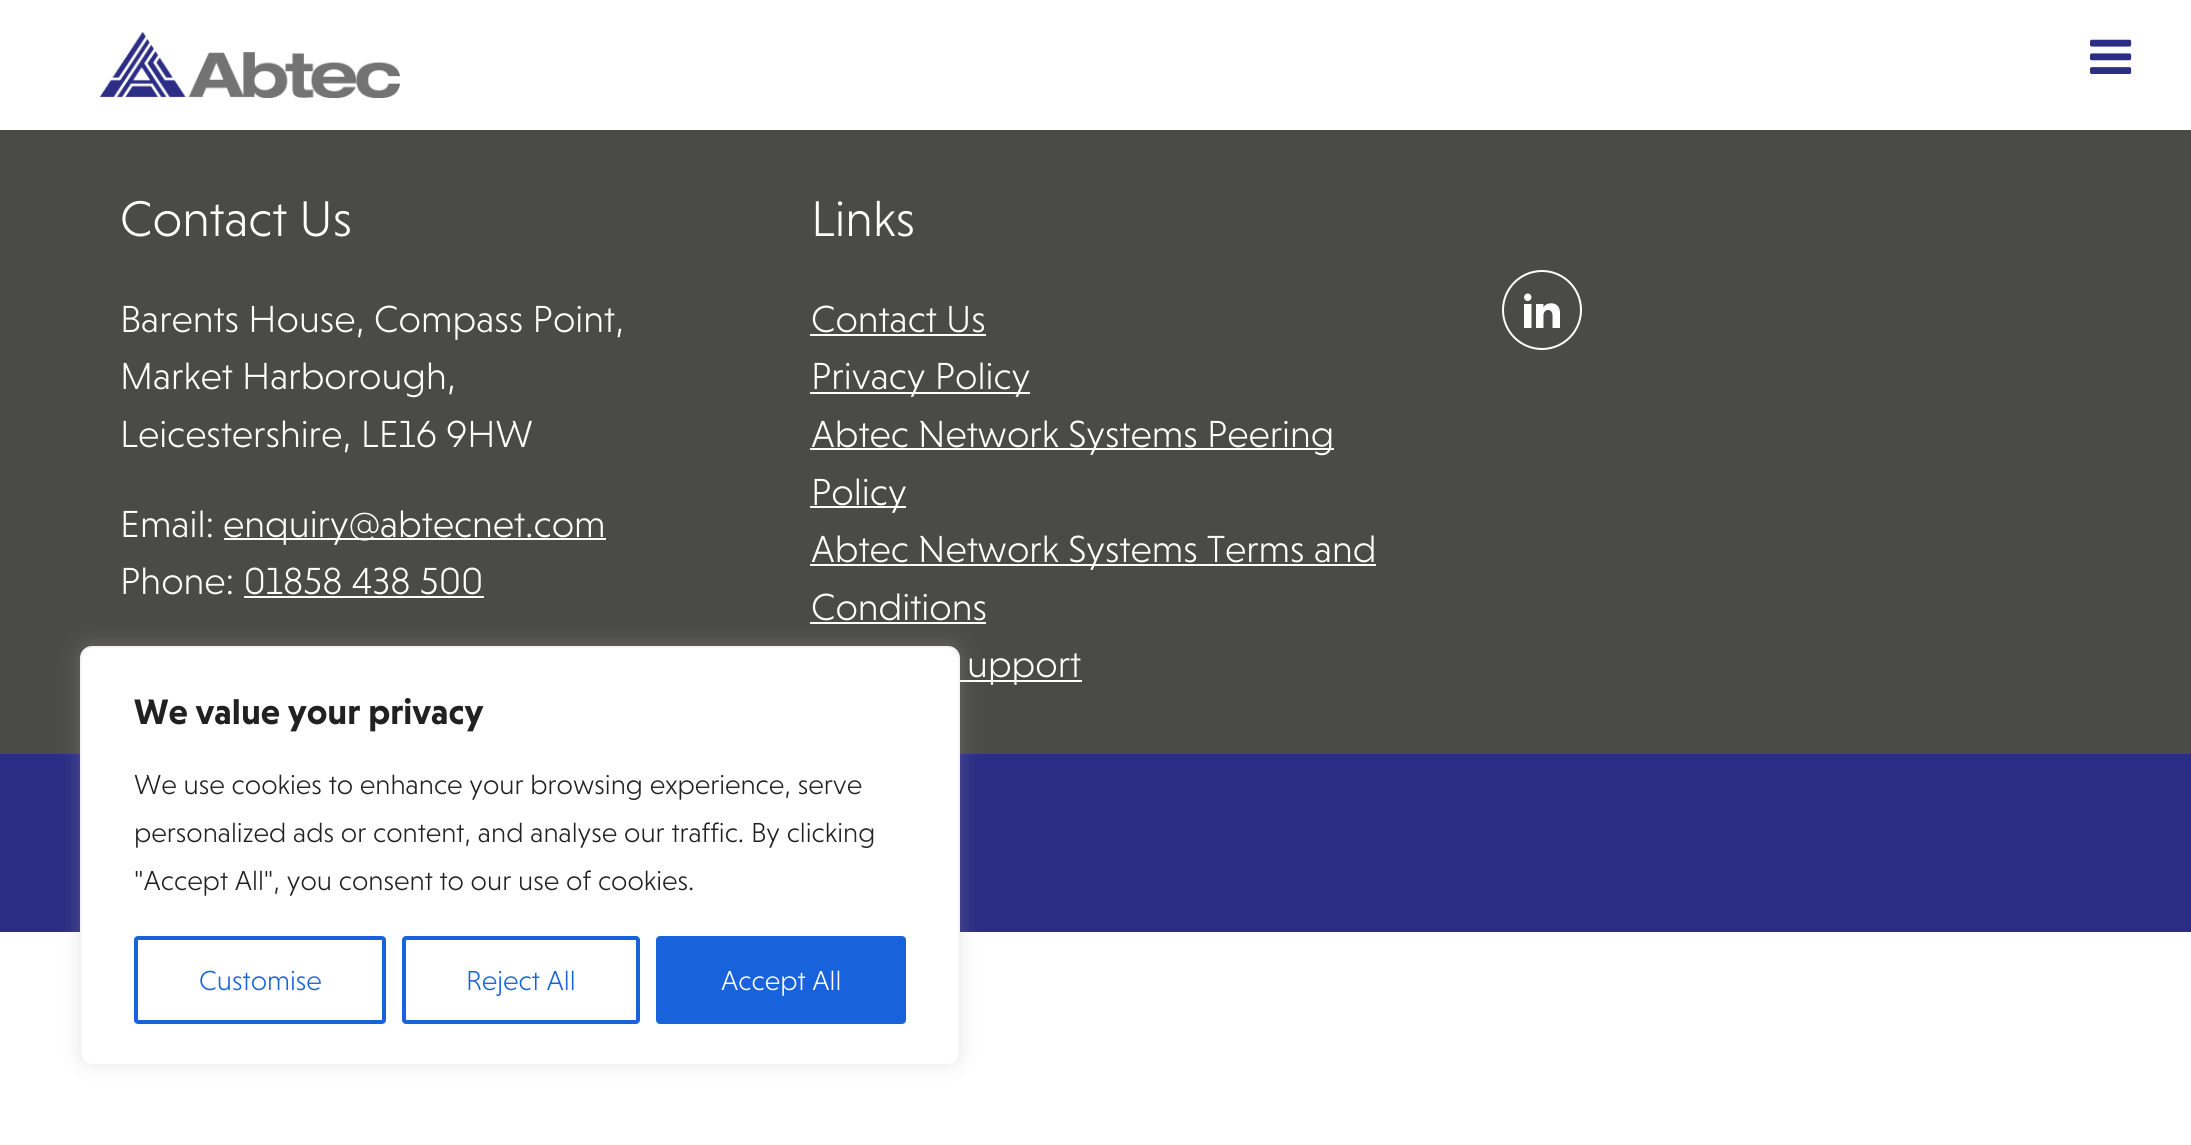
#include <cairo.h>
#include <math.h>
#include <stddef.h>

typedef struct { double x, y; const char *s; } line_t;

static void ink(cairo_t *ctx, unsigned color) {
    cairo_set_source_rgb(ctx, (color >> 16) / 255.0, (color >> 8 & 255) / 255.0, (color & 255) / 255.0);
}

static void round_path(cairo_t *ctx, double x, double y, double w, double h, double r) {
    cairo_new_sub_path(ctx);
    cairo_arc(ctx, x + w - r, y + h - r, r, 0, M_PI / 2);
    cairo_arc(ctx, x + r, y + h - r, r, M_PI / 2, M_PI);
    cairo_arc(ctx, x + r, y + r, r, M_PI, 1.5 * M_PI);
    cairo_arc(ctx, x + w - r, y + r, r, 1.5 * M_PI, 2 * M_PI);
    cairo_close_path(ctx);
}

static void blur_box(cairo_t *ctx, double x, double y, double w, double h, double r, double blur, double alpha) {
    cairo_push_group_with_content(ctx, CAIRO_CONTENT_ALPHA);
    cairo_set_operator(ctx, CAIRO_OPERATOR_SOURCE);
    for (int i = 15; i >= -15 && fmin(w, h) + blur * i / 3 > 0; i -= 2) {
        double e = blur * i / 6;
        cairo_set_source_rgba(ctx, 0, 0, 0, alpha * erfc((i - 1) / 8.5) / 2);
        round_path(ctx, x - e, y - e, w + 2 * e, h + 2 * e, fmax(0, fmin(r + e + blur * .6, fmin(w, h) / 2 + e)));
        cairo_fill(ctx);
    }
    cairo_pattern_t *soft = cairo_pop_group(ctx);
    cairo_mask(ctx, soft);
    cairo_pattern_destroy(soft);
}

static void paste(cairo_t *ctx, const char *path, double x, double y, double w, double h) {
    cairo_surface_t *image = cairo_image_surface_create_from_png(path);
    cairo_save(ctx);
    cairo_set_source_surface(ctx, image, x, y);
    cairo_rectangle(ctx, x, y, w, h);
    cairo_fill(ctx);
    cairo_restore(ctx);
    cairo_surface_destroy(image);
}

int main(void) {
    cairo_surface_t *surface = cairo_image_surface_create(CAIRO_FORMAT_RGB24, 2191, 1145);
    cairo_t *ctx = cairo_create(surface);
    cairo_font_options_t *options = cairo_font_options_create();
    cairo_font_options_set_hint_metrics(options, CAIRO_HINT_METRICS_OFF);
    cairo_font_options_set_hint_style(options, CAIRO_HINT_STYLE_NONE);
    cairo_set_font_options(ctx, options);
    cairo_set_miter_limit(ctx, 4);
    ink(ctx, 0xFFFFFF);
    cairo_paint(ctx);
    paste(ctx, "media/1.png", 100, 32, 300, 66);
    paste(ctx, "media/2.png", 2090, 39, 42, 35);
    ink(ctx, 0x4A4A49);
    cairo_rectangle(ctx, 0, 130, 2191, 624);
    cairo_fill(ctx);
    cairo_select_font_face(ctx, "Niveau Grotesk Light", CAIRO_FONT_SLANT_NORMAL, CAIRO_FONT_WEIGHT_NORMAL);
    cairo_set_font_size(ctx, 51);
    ink(ctx, 0xFFFFFF);
    cairo_move_to(ctx, 120, 236);
    cairo_show_text(ctx, "Contact Us");
    cairo_set_font_size(ctx, 38.4);
    {
        static const line_t items[] = {
            {120, 332, "Barents House, Compass Point,"},
            {120, 389, "Market Harborough,"},
            {120, 447, "Leicestershire, LE16 9HW"},
            {120, 537, "Email:"},
        };
        for (size_t i = 0; i < sizeof items / sizeof *items; i++) {
            cairo_move_to(ctx, items[i].x, items[i].y);
            cairo_show_text(ctx, items[i].s);
        }
    }
    cairo_rectangle(ctx, 224, 538, 382, 2);
    cairo_fill(ctx);
    cairo_move_to(ctx, 223, 537);
    cairo_show_text(ctx, "enquiry@abtecnet.com");
    cairo_move_to(ctx, 120, 594);
    cairo_show_text(ctx, "Phone: 01858 438 500");
    cairo_rectangle(ctx, 244, 596, 240, 2);
    cairo_fill(ctx);
    cairo_set_font_size(ctx, 51);
    cairo_move_to(ctx, 811, 236);
    cairo_show_text(ctx, "Links");
    cairo_set_font_size(ctx, 38.4);
    cairo_move_to(ctx, 811, 332);
    cairo_show_text(ctx, "Contact Us");
    cairo_rectangle(ctx, 810, 334, 176, 2);
    cairo_fill(ctx);
    cairo_rectangle(ctx, 810, 392, 220, 2);
    cairo_fill(ctx);
    cairo_move_to(ctx, 811, 389);
    cairo_show_text(ctx, "Privacy Policy");
    cairo_rectangle(ctx, 810, 448, 524, 2);
    cairo_fill(ctx);
    cairo_move_to(ctx, 811, 447);
    cairo_show_text(ctx, "Abtec Network Systems Peering");
    cairo_rectangle(ctx, 810, 506, 96, 2);
    cairo_fill(ctx);
    cairo_move_to(ctx, 811, 505);
    cairo_show_text(ctx, "Policy");
    cairo_rectangle(ctx, 810, 564, 566, 2);
    cairo_fill(ctx);
    cairo_move_to(ctx, 811, 562);
    cairo_show_text(ctx, "Abtec Network Systems Terms and");
    cairo_move_to(ctx, 811, 620);
    cairo_show_text(ctx, "Conditions");
    cairo_rectangle(ctx, 810, 622, 176, 2);
    cairo_fill(ctx);
    cairo_rectangle(ctx, 960, 680, 122, 2);
    cairo_fill(ctx);
    cairo_move_to(ctx, 967, 677);
    cairo_show_text(ctx, "upport");
    cairo_new_path(ctx);
    cairo_arc(ctx, 1542, 310, 39, 0, 2 * M_PI);
    cairo_stroke(ctx);
    paste(ctx, "media/3.png", 1524, 293, 36, 35);
    ink(ctx, 0x2B2D84);
    cairo_rectangle(ctx, 0, 754, 2191, 178);
    cairo_fill(ctx);
    ink(ctx, 0xACABAB);
    blur_box(ctx, 80, 644, 880, 420, 12, 10, 0.3);
    ink(ctx, 0xFFFFFF);
    round_path(ctx, 81, 647, 878, 418, 11);
    cairo_fill_preserve(ctx);
    ink(ctx, 0xF4F4F4);
    cairo_stroke(ctx);
    cairo_select_font_face(ctx, "Niveau Grotesk", CAIRO_FONT_SLANT_NORMAL, CAIRO_FONT_WEIGHT_BOLD);
    cairo_set_font_size(ctx, 36);
    ink(ctx, 0x212121);
    cairo_move_to(ctx, 134, 724);
    cairo_show_text(ctx, "We value your privacy");
    cairo_select_font_face(ctx, "Niveau Grotesk Light", CAIRO_FONT_SLANT_NORMAL, CAIRO_FONT_WEIGHT_NORMAL);
    cairo_set_font_size(ctx, 28);
    {
        static const line_t items[] = {
            {134, 794, "We use cookies to enhance your browsing experience, serve"},
            {134, 842, "personalized ads or content, and analyse our traffic. By clicking"},
            {134, 890, "\"Accept All\", you consent to our use of cookies."},
        };
        for (size_t i = 0; i < sizeof items / sizeof *items; i++) {
            cairo_move_to(ctx, items[i].x, items[i].y);
            cairo_show_text(ctx, items[i].s);
        }
    }
    round_path(ctx, 136, 938, 248, 84, 2);
    ink(ctx, 0x1863DC);
    cairo_set_line_width(ctx, 4);
    cairo_stroke(ctx);
    cairo_move_to(ctx, 199, 990);
    cairo_show_text(ctx, "Customise");
    round_path(ctx, 404, 938, 234, 84, 2);
    cairo_stroke(ctx);
    cairo_move_to(ctx, 466, 990);
    cairo_show_text(ctx, "Reject All");
    round_path(ctx, 658, 938, 246, 84, 2);
    cairo_fill_preserve(ctx);
    cairo_stroke(ctx);
    ink(ctx, 0xFFFFFF);
    cairo_move_to(ctx, 721, 990);
    cairo_show_text(ctx, "Accept All");
    cairo_surface_write_to_png(surface, "image.png");
    cairo_font_options_destroy(options);
    cairo_destroy(ctx);
    cairo_surface_destroy(surface);
    return 0;
}
